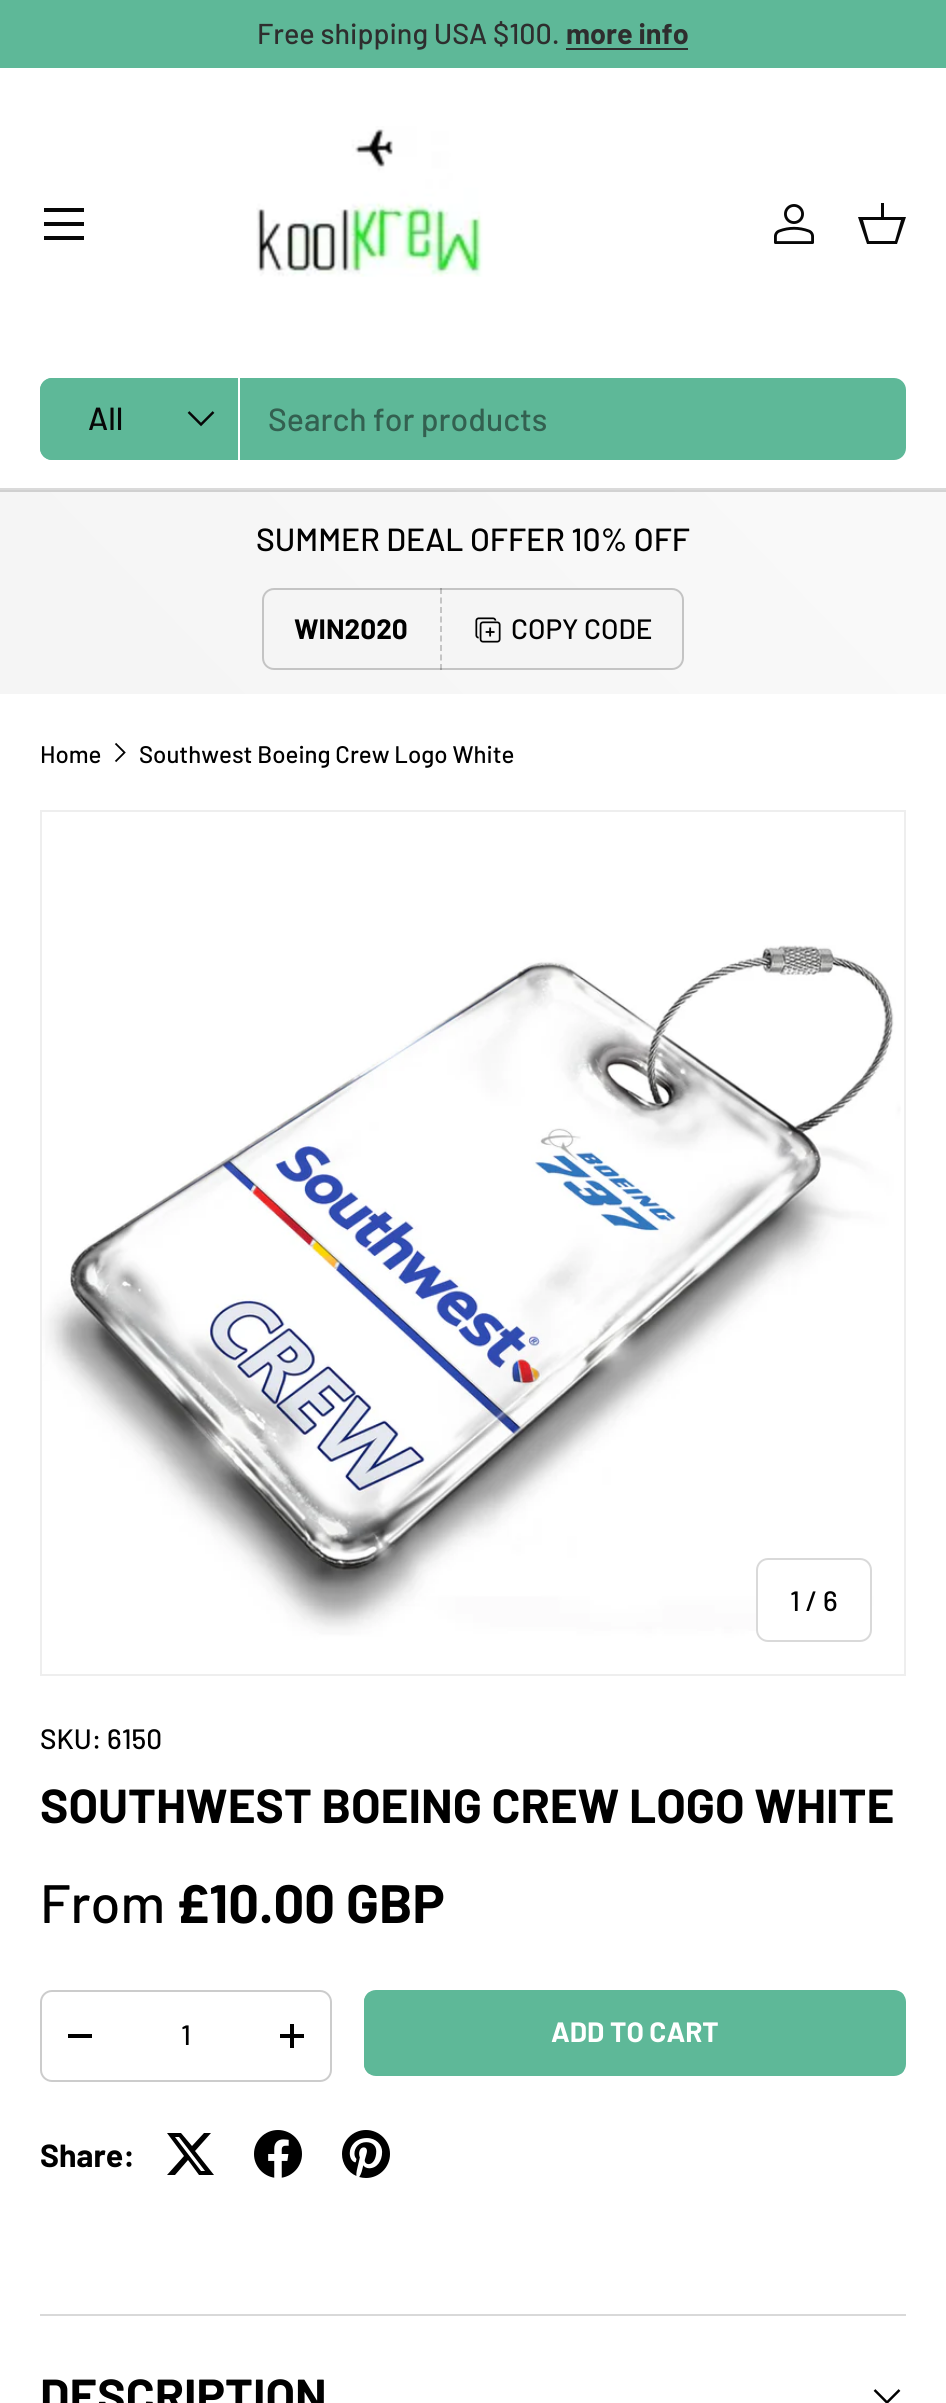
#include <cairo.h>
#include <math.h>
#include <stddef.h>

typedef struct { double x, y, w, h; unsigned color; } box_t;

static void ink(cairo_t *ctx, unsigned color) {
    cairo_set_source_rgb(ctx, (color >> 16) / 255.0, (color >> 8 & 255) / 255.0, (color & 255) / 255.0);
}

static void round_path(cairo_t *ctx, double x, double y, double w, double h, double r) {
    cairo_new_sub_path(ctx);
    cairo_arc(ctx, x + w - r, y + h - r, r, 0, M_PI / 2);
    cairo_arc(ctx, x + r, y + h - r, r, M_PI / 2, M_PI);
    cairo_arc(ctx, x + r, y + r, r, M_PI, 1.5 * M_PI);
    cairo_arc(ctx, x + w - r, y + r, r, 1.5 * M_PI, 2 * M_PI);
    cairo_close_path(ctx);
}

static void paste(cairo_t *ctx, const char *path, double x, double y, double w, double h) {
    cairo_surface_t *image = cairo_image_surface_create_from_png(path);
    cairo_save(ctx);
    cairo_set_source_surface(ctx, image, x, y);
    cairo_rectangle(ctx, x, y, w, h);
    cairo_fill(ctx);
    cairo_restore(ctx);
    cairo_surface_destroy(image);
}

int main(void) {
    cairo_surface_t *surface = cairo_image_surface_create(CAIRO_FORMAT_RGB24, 946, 2403);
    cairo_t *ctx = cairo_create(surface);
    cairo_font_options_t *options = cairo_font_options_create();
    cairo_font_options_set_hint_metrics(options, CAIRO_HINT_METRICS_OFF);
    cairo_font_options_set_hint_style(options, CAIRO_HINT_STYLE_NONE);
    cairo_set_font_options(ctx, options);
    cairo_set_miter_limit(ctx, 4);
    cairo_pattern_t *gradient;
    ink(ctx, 0xFFFFFF);
    cairo_paint(ctx);
    ink(ctx, 0x5EB898);
    cairo_rectangle(ctx, 0, 0, 946, 68);
    cairo_fill(ctx);
    cairo_select_font_face(ctx, "Barlow Medium", CAIRO_FONT_SLANT_NORMAL, CAIRO_FONT_WEIGHT_NORMAL);
    cairo_set_font_size(ctx, 28.75);
    ink(ctx, 0x2E2E2E);
    cairo_move_to(ctx, 257, 44);
    cairo_show_text(ctx, "Free shipping USA $100.");
    cairo_select_font_face(ctx, "Barlow", CAIRO_FONT_SLANT_NORMAL, CAIRO_FONT_WEIGHT_BOLD);
    cairo_move_to(ctx, 566, 44);
    cairo_show_text(ctx, "more info");
    {
        static const box_t items[] = {
            {566, 48, 122, 2, 0x2E2E2E},
            {0, 488, 946, 2, 0xDADADA},
            {44, 208, 40, 4, 0x070707},
            {44, 236, 40, 4, 0x070707},
            {44, 222, 40, 4, 0x070707},
        };
        for (size_t i = 0; i < sizeof items / sizeof *items; i++) {
            ink(ctx, items[i].color);
            cairo_rectangle(ctx, items[i].x, items[i].y, items[i].w, items[i].h);
            cairo_fill(ctx);
        }
    }
    paste(ctx, "media/1.png", 256, 126, 227, 151);
    paste(ctx, "media/2.png", 774, 204, 40, 40);
    cairo_new_path(ctx);
    cairo_move_to(ctx, 881, 217);
    cairo_line_to(ctx, 881, 203);
    cairo_line_to(ctx, 884, 203);
    cairo_line_to(ctx, 884, 217);
    cairo_line_to(ctx, 906, 217);
    cairo_line_to(ctx, 897, 244);
    cairo_line_to(ctx, 867, 244);
    cairo_line_to(ctx, 858, 217);
    cairo_close_path(ctx);
    cairo_move_to(ctx, 863, 220);
    cairo_line_to(ctx, 869, 241);
    cairo_line_to(ctx, 895, 241);
    cairo_line_to(ctx, 901, 220);
    cairo_close_path(ctx);
    cairo_fill(ctx);
    ink(ctx, 0x5EB898);
    round_path(ctx, 40, 378, 866, 82, 12);
    cairo_fill(ctx);
    cairo_new_path(ctx);
    cairo_move_to(ctx, 52, 378);
    cairo_line_to(ctx, 240, 378);
    cairo_line_to(ctx, 240, 460);
    cairo_line_to(ctx, 52, 460);
    cairo_curve_to(ctx, 45.5, 460, 40, 454.5, 40, 448);
    cairo_line_to(ctx, 40, 390);
    cairo_curve_to(ctx, 40, 383.5, 45.5, 378, 52, 378);
    cairo_close_path(ctx);
    cairo_fill(ctx);
    ink(ctx, 0xFFFFFF);
    cairo_rectangle(ctx, 238, 378, 2, 82);
    cairo_fill(ctx);
    cairo_select_font_face(ctx, "Barlow Medium", CAIRO_FONT_SLANT_NORMAL, CAIRO_FONT_WEIGHT_NORMAL);
    cairo_set_font_size(ctx, 32);
    ink(ctx, 0x070707);
    cairo_move_to(ctx, 88, 430);
    cairo_show_text(ctx, "All");
    cairo_new_path(ctx);
    cairo_move_to(ctx, 213.5, 412);
    cairo_line_to(ctx, 201, 424.5);
    cairo_line_to(ctx, 188.5, 412);
    cairo_set_line_width(ctx, 2.5);
    cairo_stroke(ctx);
    ink(ctx, 0x336050);
    cairo_move_to(ctx, 268, 431);
    cairo_show_text(ctx, "Search for products");
    gradient = cairo_pattern_create_linear(178, 676, 768, 106);
    cairo_pattern_add_color_stop_rgba(gradient, 0.13, 0.816, 0.816, 0.816, 1);
    cairo_pattern_add_color_stop_rgba(gradient, 0.86, 0.831, 0.831, 0.831, 1);
    cairo_set_source(ctx, gradient);
    cairo_pattern_destroy(gradient);
    cairo_rectangle(ctx, 0, 490, 946, 2);
    cairo_fill(ctx);
    gradient = cairo_pattern_create_linear(178, 878, 768, 308);
    cairo_pattern_add_color_stop_rgba(gradient, 0.13, 0.961, 0.961, 0.961, 1);
    cairo_pattern_add_color_stop_rgba(gradient, 0.86, 0.976, 0.976, 0.976, 1);
    cairo_set_source(ctx, gradient);
    cairo_pattern_destroy(gradient);
    cairo_rectangle(ctx, 0, 492, 946, 202);
    cairo_fill(ctx);
    ink(ctx, 0x000000);
    cairo_move_to(ctx, 256, 551);
    cairo_show_text(ctx, "SUMMER DEAL OFFER 10% OFF");
    ink(ctx, 0xF5F5F5);
    round_path(ctx, 263, 589, 420, 80, 11);
    cairo_fill_preserve(ctx);
    ink(ctx, 0xC4C4C4);
    cairo_set_line_width(ctx, 2);
    cairo_stroke(ctx);
    cairo_select_font_face(ctx, "Barlow", CAIRO_FONT_SLANT_NORMAL, CAIRO_FONT_WEIGHT_BOLD);
    cairo_set_font_size(ctx, 28);
    ink(ctx, 0x000000);
    cairo_move_to(ctx, 294, 639);
    cairo_show_text(ctx, "WIN2020");
    cairo_new_path(ctx);
    cairo_move_to(ctx, 441, 588);
    cairo_line_to(ctx, 441, 670);
    cairo_set_source_rgba(ctx, 0, 0, 0, 0.2);
    cairo_set_dash(ctx, (double[]){6, 3.5}, 2, 0);
    cairo_stroke(ctx);
    paste(ctx, "media/3.png", 475, 617, 26, 26);
    cairo_select_font_face(ctx, "Barlow Medium", CAIRO_FONT_SLANT_NORMAL, CAIRO_FONT_WEIGHT_NORMAL);
    ink(ctx, 0x000000);
    cairo_move_to(ctx, 511, 639);
    cairo_show_text(ctx, "COPY CODE");
    cairo_set_font_size(ctx, 24);
    cairo_move_to(ctx, 40, 763);
    cairo_show_text(ctx, "Home");
    cairo_new_path(ctx);
    cairo_move_to(ctx, 115.5, 743.5);
    cairo_line_to(ctx, 124.5, 752.5);
    cairo_line_to(ctx, 115.5, 761.5);
    cairo_set_line_width(ctx, 1.8);
    cairo_set_dash(ctx, NULL, 0, 0);
    cairo_stroke(ctx);
    cairo_move_to(ctx, 139, 763);
    cairo_show_text(ctx, "Southwest Boeing Crew Logo White");
    cairo_rectangle(ctx, 41, 811, 864, 864);
    ink(ctx, 0xEEEEEE);
    cairo_set_line_width(ctx, 2);
    cairo_stroke(ctx);
    paste(ctx, "media/4.png", 42, 812, 862, 862);
    ink(ctx, 0xFFFFFF);
    round_path(ctx, 757, 1559, 114, 82, 11);
    cairo_fill_preserve(ctx);
    ink(ctx, 0xD9D9D9);
    cairo_stroke(ctx);
    cairo_set_font_size(ctx, 28);
    ink(ctx, 0x000000);
    cairo_move_to(ctx, 790, 1611);
    cairo_show_text(ctx, "1 / 6");
    cairo_move_to(ctx, 40, 1749);
    cairo_show_text(ctx, "SKU: 6150");
    cairo_select_font_face(ctx, "Barlow", CAIRO_FONT_SLANT_NORMAL, CAIRO_FONT_WEIGHT_BOLD);
    cairo_set_font_size(ctx, 47.7);
    cairo_move_to(ctx, 40, 1823);
    cairo_show_text(ctx, "SOUTHWEST BOEING CREW LOGO WHITE");
    cairo_select_font_face(ctx, "Barlow Medium", CAIRO_FONT_SLANT_NORMAL, CAIRO_FONT_WEIGHT_NORMAL);
    cairo_set_font_size(ctx, 54);
    cairo_move_to(ctx, 40, 1923);
    cairo_show_text(ctx, "From");
    cairo_select_font_face(ctx, "Barlow", CAIRO_FONT_SLANT_NORMAL, CAIRO_FONT_WEIGHT_BOLD);
    cairo_move_to(ctx, 176, 1923);
    cairo_show_text(ctx, "£10.00 GBP");
    round_path(ctx, 41, 1991, 290, 90, 11);
    ink(ctx, 0xCCCCCC);
    cairo_stroke(ctx);
    ink(ctx, 0x000000);
    cairo_rectangle(ctx, 68, 2034, 24, 4);
    cairo_fill(ctx);
    cairo_select_font_face(ctx, "Barlow Medium", CAIRO_FONT_SLANT_NORMAL, CAIRO_FONT_WEIGHT_NORMAL);
    cairo_set_font_size(ctx, 28);
    cairo_move_to(ctx, 181, 2045);
    cairo_show_text(ctx, "1");
    cairo_rectangle(ctx, 280, 2034, 24, 4);
    cairo_fill(ctx);
    cairo_rectangle(ctx, 290, 2024, 4, 24);
    cairo_fill(ctx);
    cairo_save(ctx);
    round_path(ctx, 364, 1990, 542, 86, 12);
    cairo_clip(ctx);
    gradient = cairo_pattern_create_linear(-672, 1841, 866, 2225);
    cairo_pattern_add_color_stop_rgba(gradient, 0.6, 0.506, 0.784, 0.682, 1);
    cairo_pattern_add_color_stop_rgba(gradient, 0.6, 0.369, 0.722, 0.596, 1);
    cairo_pattern_add_color_stop_rgba(gradient, 1, 0.369, 0.722, 0.596, 1);
    cairo_set_source(ctx, gradient);
    cairo_pattern_destroy(gradient);
    cairo_rectangle(ctx, 364, 1992, 540, 82);
    cairo_fill(ctx);
    cairo_restore(ctx);
    round_path(ctx, 365, 1991, 540, 84, 11);
    ink(ctx, 0x5EB898);
    cairo_stroke(ctx);
    cairo_select_font_face(ctx, "Barlow", CAIRO_FONT_SLANT_NORMAL, CAIRO_FONT_WEIGHT_BOLD);
    ink(ctx, 0xFFFFFF);
    cairo_move_to(ctx, 551, 2042);
    cairo_show_text(ctx, "ADD TO CART");
    cairo_set_font_size(ctx, 32);
    ink(ctx, 0x000000);
    cairo_move_to(ctx, 40, 2167);
    cairo_show_text(ctx, "Share:");
    cairo_new_path(ctx);
    cairo_move_to(ctx, 204, 2133);
    cairo_line_to(ctx, 211, 2133);
    cairo_line_to(ctx, 195, 2151);
    cairo_line_to(ctx, 214, 2175);
    cairo_line_to(ctx, 199, 2175);
    cairo_line_to(ctx, 188, 2160);
    cairo_line_to(ctx, 175, 2175);
    cairo_line_to(ctx, 167, 2175);
    cairo_line_to(ctx, 184, 2156);
    cairo_line_to(ctx, 167, 2133);
    cairo_line_to(ctx, 181, 2133);
    cairo_line_to(ctx, 192, 2146);
    cairo_close_path(ctx);
    cairo_move_to(ctx, 201, 2171);
    cairo_line_to(ctx, 205, 2171);
    cairo_line_to(ctx, 179, 2137);
    cairo_line_to(ctx, 175, 2137);
    cairo_close_path(ctx);
    cairo_fill(ctx);
    paste(ctx, "media/5.png", 254, 2130, 48, 48);
    paste(ctx, "media/6.png", 342, 2130, 48, 48);
    ink(ctx, 0xD9D9D9);
    cairo_rectangle(ctx, 40, 2314, 866, 2);
    cairo_fill(ctx);
    cairo_set_font_size(ctx, 47.7);
    ink(ctx, 0x000000);
    cairo_move_to(ctx, 40, 2413);
    cairo_show_text(ctx, "DESCRIPTION");
    cairo_new_path(ctx);
    cairo_move_to(ctx, 899.5, 2390);
    cairo_line_to(ctx, 887, 2402.5);
    cairo_line_to(ctx, 874.5, 2390);
    cairo_set_line_width(ctx, 2.5);
    cairo_stroke(ctx);
    cairo_surface_write_to_png(surface, "image.png");
    cairo_font_options_destroy(options);
    cairo_destroy(ctx);
    cairo_surface_destroy(surface);
    return 0;
}
